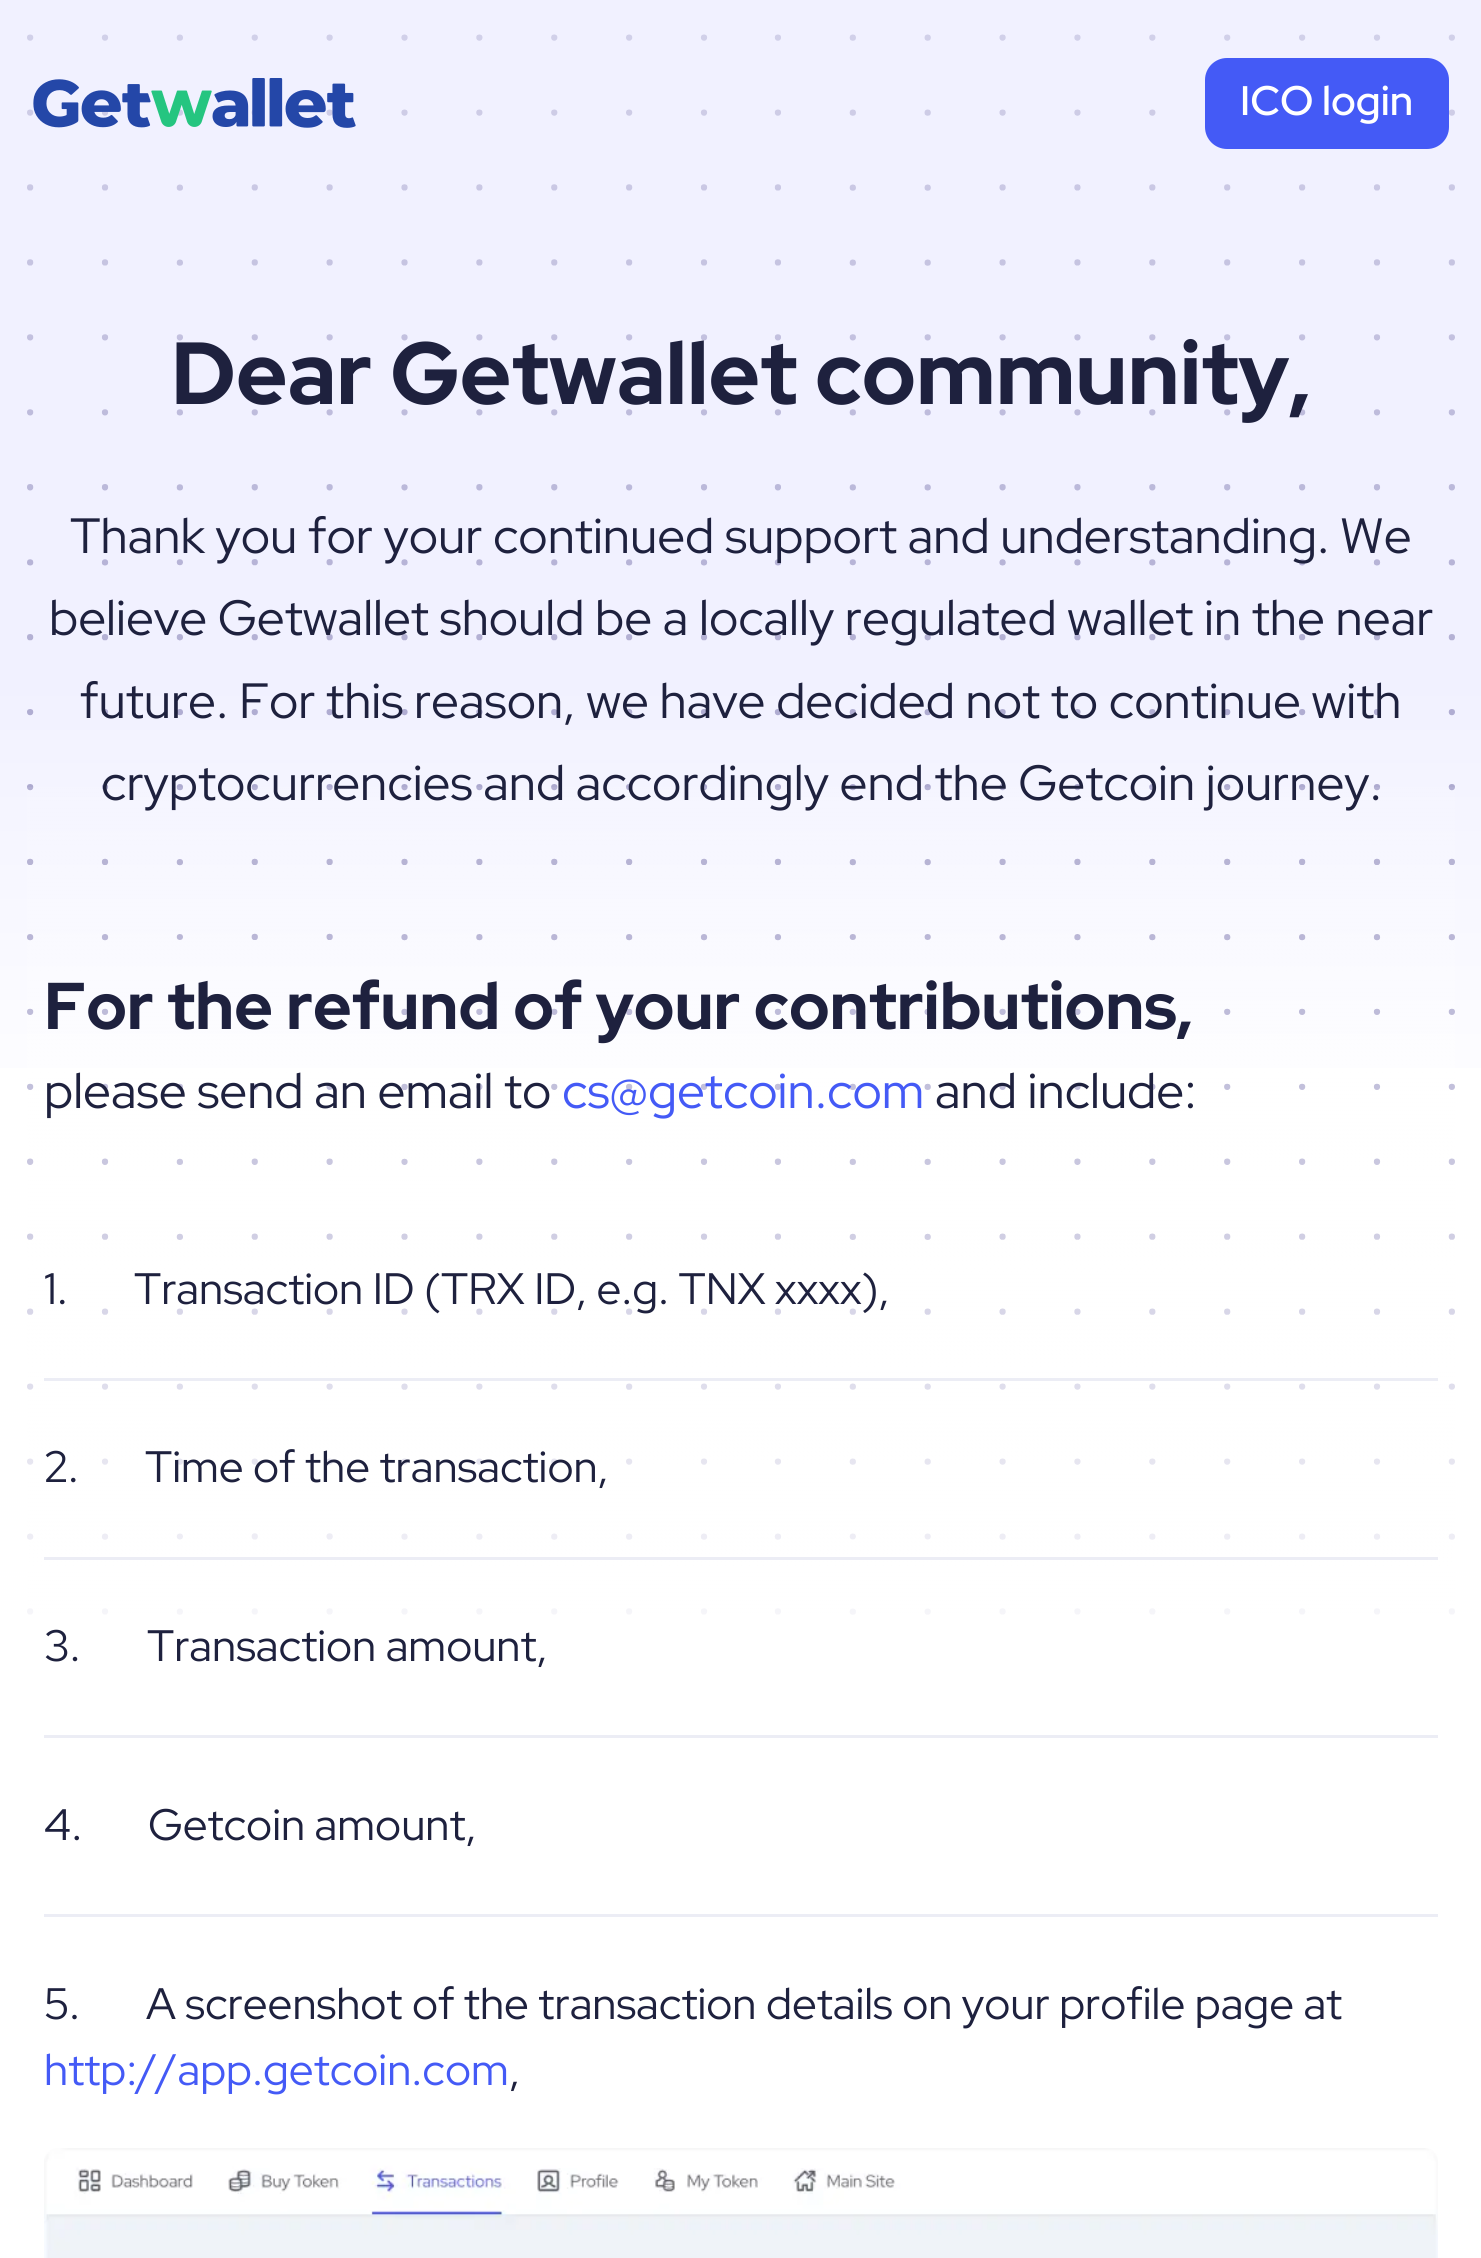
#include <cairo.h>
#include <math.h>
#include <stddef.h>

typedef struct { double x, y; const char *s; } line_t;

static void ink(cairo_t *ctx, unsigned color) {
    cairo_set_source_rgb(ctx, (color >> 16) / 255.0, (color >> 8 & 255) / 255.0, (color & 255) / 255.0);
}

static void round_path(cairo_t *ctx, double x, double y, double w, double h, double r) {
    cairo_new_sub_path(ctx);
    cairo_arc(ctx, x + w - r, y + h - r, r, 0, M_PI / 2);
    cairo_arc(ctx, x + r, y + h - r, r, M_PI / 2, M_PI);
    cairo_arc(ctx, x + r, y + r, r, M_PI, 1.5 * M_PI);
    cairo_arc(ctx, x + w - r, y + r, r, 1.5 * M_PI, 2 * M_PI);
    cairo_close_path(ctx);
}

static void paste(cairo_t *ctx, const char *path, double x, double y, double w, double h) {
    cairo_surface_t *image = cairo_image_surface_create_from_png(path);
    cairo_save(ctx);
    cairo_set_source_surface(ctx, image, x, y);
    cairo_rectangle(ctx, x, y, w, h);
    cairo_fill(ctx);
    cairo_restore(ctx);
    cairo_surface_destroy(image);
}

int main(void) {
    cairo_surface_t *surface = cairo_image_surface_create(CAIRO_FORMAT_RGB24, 1481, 2258);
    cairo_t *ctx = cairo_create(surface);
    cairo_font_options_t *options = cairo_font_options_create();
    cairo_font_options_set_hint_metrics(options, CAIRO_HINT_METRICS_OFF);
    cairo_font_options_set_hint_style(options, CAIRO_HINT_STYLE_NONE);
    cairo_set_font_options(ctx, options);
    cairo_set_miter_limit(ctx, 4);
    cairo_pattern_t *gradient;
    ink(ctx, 0xFFFFFF);
    cairo_paint(ctx);
    gradient = cairo_pattern_create_linear(741, -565, 741, 1695);
    cairo_pattern_add_color_stop_rgba(gradient, 0.55, 0.945, 0.945, 1, 1);
    cairo_pattern_add_color_stop_rgba(gradient, 0.76, 1, 1, 1, 1);
    cairo_set_source(ctx, gradient);
    cairo_pattern_destroy(gradient);
    cairo_rectangle(ctx, 0, 0, 1481, 1068);
    cairo_fill(ctx);
    paste(ctx, "media/2.png", 27, 34, 1428, 1581);
    paste(ctx, "media/1.png", 33, 78, 323, 50);
    ink(ctx, 0x445AF6);
    round_path(ctx, 1206.5, 59.5, 241, 88, 20.5);
    cairo_fill_preserve(ctx);
    cairo_set_line_width(ctx, 3);
    cairo_stroke(ctx);
    cairo_select_font_face(ctx, "Red Hat Display Medium", CAIRO_FONT_SLANT_NORMAL, CAIRO_FONT_WEIGHT_NORMAL);
    cairo_set_font_size(ctx, 41.25);
    ink(ctx, 0xFFFFFF);
    cairo_move_to(ctx, 1240, 115);
    cairo_show_text(ctx, "ICO login");
    cairo_select_font_face(ctx, "Red Hat Display", CAIRO_FONT_SLANT_NORMAL, CAIRO_FONT_WEIGHT_BOLD);
    cairo_set_font_size(ctx, 88);
    ink(ctx, 0x1E213E);
    cairo_move_to(ctx, 171, 404);
    cairo_show_text(ctx, "Dear Getwallet community,");
    cairo_select_font_face(ctx, "Red Hat Display", CAIRO_FONT_SLANT_NORMAL, CAIRO_FONT_WEIGHT_NORMAL);
    cairo_set_font_size(ctx, 49.5);
    {
        static const line_t items[] = {
            {70, 553, "Thank you for your continued support and understanding. We"},
            {49, 635, "believe Getwallet should be a locally regulated wallet in the near"},
            {80, 718, "future. For this reason, we have decided not to continue with"},
            {101, 800, "cryptocurrencies and accordingly end the Getcoin journey."},
        };
        for (size_t i = 0; i < sizeof items / sizeof *items; i++) {
            cairo_move_to(ctx, items[i].x, items[i].y);
            cairo_show_text(ctx, items[i].s);
        }
    }
    cairo_select_font_face(ctx, "Red Hat Display", CAIRO_FONT_SLANT_NORMAL, CAIRO_FONT_WEIGHT_BOLD);
    cairo_set_font_size(ctx, 66);
    cairo_move_to(ctx, 44, 1029);
    cairo_show_text(ctx, "For the refund of your contributions,");
    cairo_select_font_face(ctx, "Red Hat Display", CAIRO_FONT_SLANT_NORMAL, CAIRO_FONT_WEIGHT_NORMAL);
    cairo_set_font_size(ctx, 49.5);
    cairo_move_to(ctx, 44, 1108);
    cairo_show_text(ctx, "please send an email to");
    ink(ctx, 0x445AF6);
    cairo_move_to(ctx, 562, 1108);
    cairo_show_text(ctx, "cs@getcoin.com");
    ink(ctx, 0x1E213E);
    cairo_move_to(ctx, 935, 1108);
    cairo_show_text(ctx, "and include:");
    ink(ctx, 0xECEDF5);
    cairo_rectangle(ctx, 44, 1378, 1394, 3);
    cairo_fill(ctx);
    cairo_set_font_size(ctx, 44);
    ink(ctx, 0x1E213E);
    cairo_move_to(ctx, 44, 1304);
    cairo_show_text(ctx, "1.");
    cairo_move_to(ctx, 134, 1304);
    cairo_show_text(ctx, "Transaction ID (TRX ID, e.g. TNX xxxx),");
    ink(ctx, 0xECEDF5);
    cairo_rectangle(ctx, 44, 1557, 1394, 3);
    cairo_fill(ctx);
    ink(ctx, 0x1E213E);
    cairo_move_to(ctx, 44, 1482);
    cairo_show_text(ctx, "2.");
    cairo_move_to(ctx, 145, 1482);
    cairo_show_text(ctx, "Time of the transaction,");
    ink(ctx, 0xECEDF5);
    cairo_rectangle(ctx, 44, 1735, 1394, 3);
    cairo_fill(ctx);
    ink(ctx, 0x1E213E);
    cairo_move_to(ctx, 44, 1661);
    cairo_show_text(ctx, "3.");
    cairo_move_to(ctx, 147, 1661);
    cairo_show_text(ctx, "Transaction amount,");
    ink(ctx, 0xECEDF5);
    cairo_rectangle(ctx, 44, 1914, 1394, 3);
    cairo_fill(ctx);
    ink(ctx, 0x1E213E);
    {
        static const line_t items[] = {
            {44, 1840, "4."},
            {148, 1840, "Getcoin amount,"},
            {44, 2019, "5."},
            {146, 2019, "A screenshot of the transaction details on your profile page at"},
        };
        for (size_t i = 0; i < sizeof items / sizeof *items; i++) {
            cairo_move_to(ctx, items[i].x, items[i].y);
            cairo_show_text(ctx, items[i].s);
        }
    }
    ink(ctx, 0x445AF6);
    cairo_move_to(ctx, 44, 2085);
    cairo_show_text(ctx, "http://app.getcoin.com");
    ink(ctx, 0x1E213E);
    cairo_move_to(ctx, 509, 2085);
    cairo_show_text(ctx, ",");
    paste(ctx, "media/3.png", 44, 2148, 1394, 110);
    cairo_surface_write_to_png(surface, "image.png");
    cairo_font_options_destroy(options);
    cairo_destroy(ctx);
    cairo_surface_destroy(surface);
    return 0;
}
